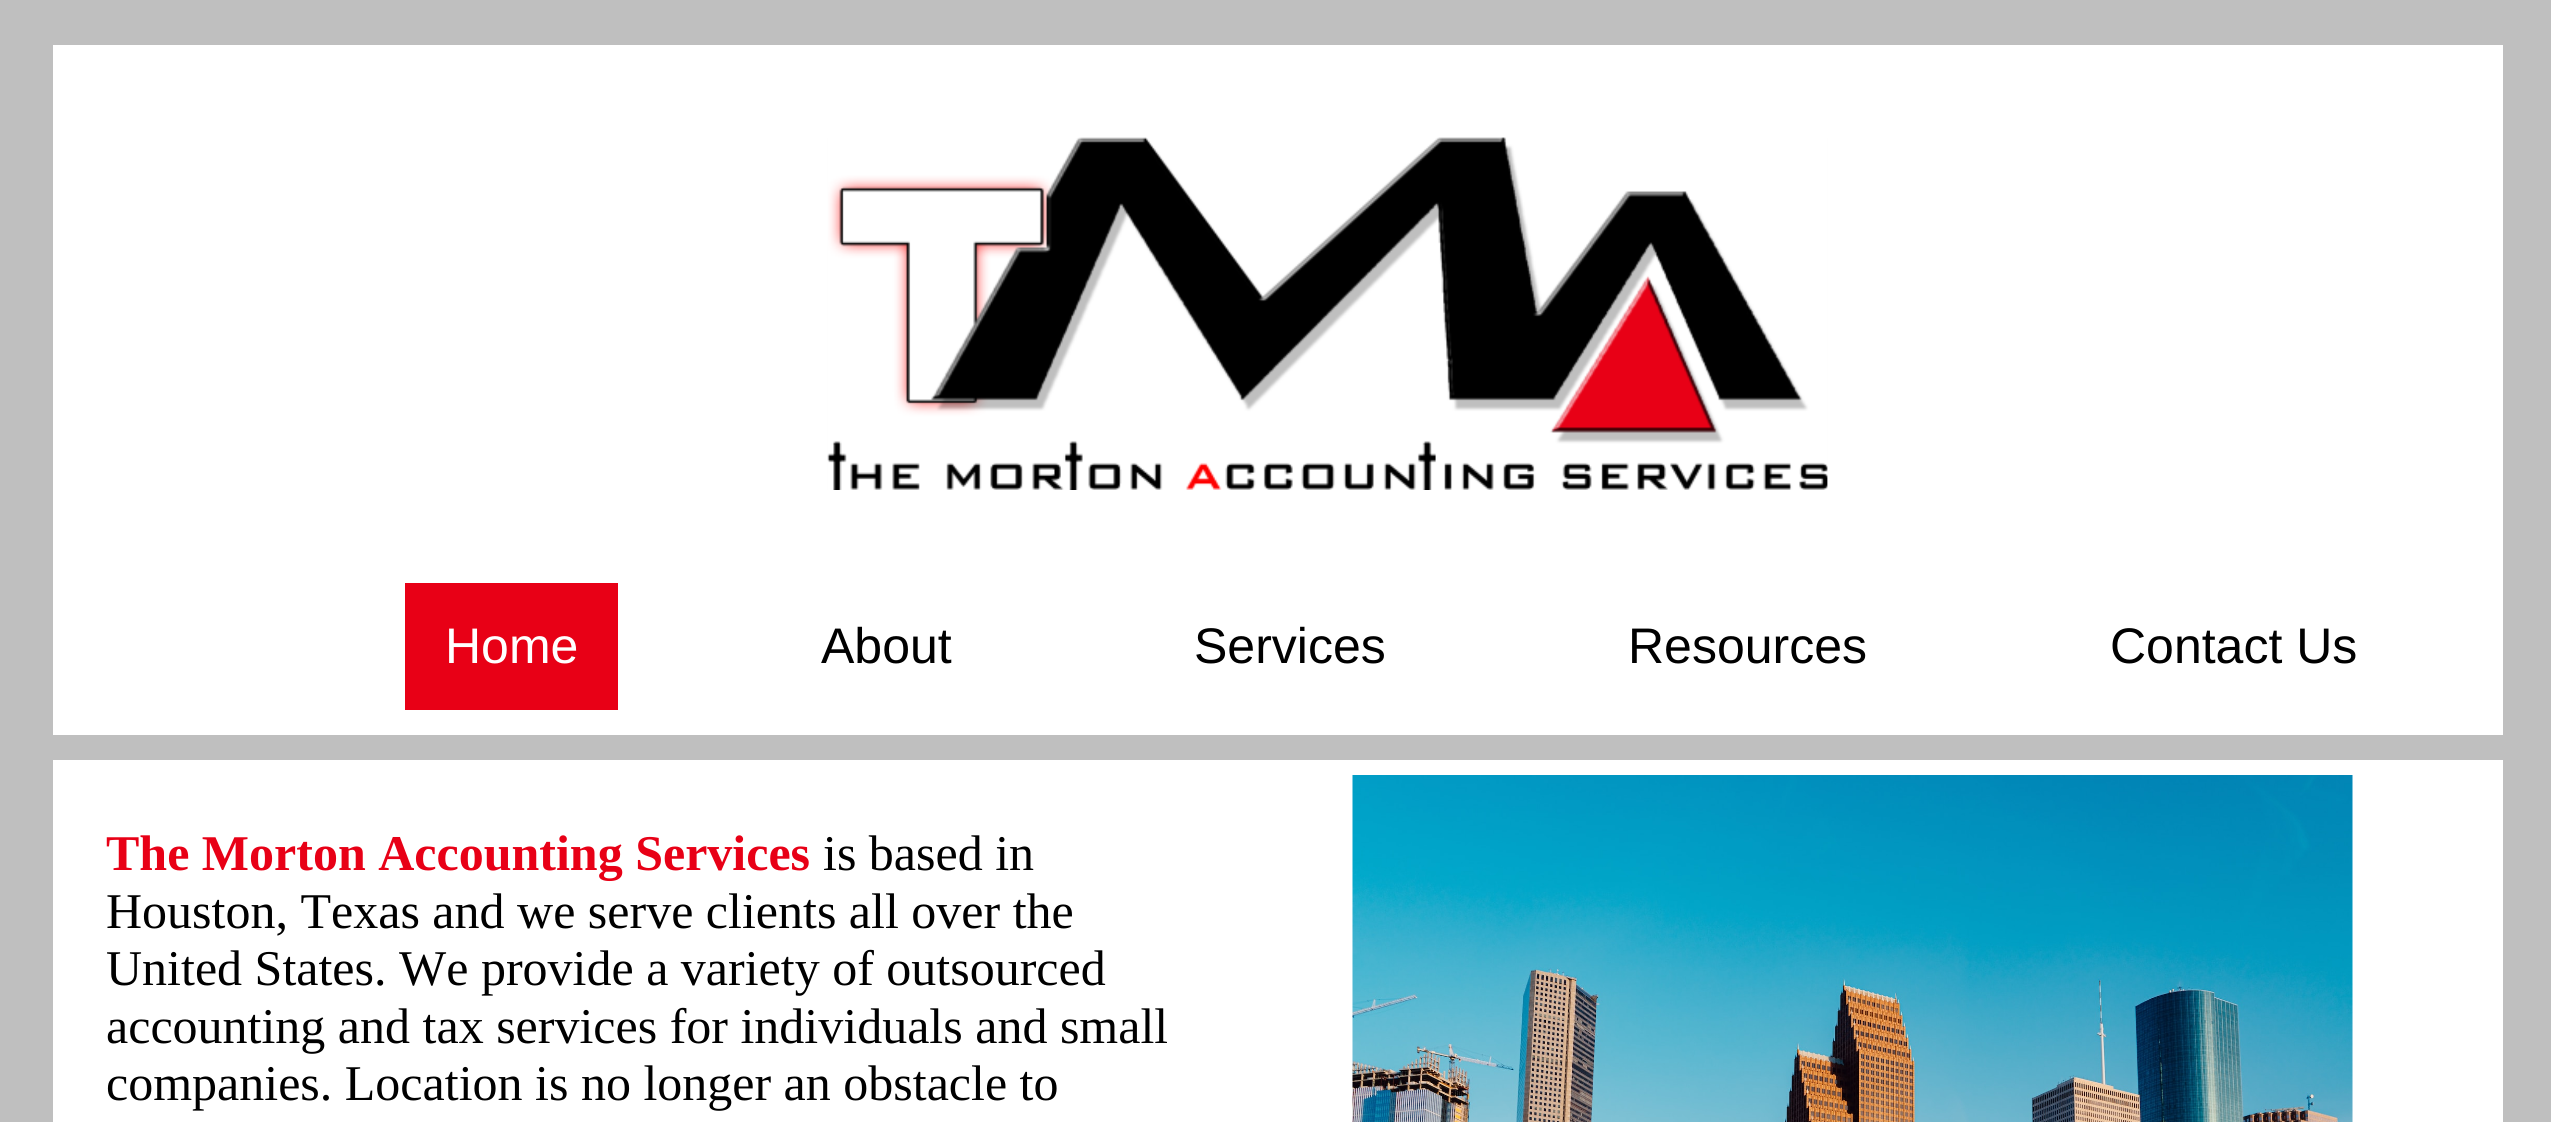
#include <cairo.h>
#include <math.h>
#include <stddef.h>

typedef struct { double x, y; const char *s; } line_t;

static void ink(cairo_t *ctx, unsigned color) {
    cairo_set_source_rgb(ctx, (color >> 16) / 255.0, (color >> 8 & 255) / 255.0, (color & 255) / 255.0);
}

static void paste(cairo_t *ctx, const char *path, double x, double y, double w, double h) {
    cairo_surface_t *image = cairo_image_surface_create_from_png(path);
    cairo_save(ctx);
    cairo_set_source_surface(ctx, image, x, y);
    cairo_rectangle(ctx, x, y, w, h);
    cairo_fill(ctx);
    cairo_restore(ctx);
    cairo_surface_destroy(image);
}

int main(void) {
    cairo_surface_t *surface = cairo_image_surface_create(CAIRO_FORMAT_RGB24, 2551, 1122);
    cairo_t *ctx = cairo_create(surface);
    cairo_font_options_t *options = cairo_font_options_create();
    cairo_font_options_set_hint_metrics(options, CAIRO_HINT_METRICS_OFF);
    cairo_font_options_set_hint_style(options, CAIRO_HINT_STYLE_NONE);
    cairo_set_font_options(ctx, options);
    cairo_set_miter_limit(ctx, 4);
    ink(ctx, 0xBFBFBF);
    cairo_paint(ctx);
    ink(ctx, 0xFFFFFF);
    cairo_rectangle(ctx, 53, 45, 2450, 690);
    cairo_fill(ctx);
    paste(ctx, "media/1.png", 827, 137, 1001, 353);
    ink(ctx, 0xE80016);
    cairo_rectangle(ctx, 405, 583, 213, 127);
    cairo_fill(ctx);
    cairo_select_font_face(ctx, "Liberation Sans", CAIRO_FONT_SLANT_NORMAL, CAIRO_FONT_WEIGHT_NORMAL);
    cairo_set_font_size(ctx, 50);
    ink(ctx, 0xFFFFFF);
    cairo_move_to(ctx, 445, 663);
    cairo_show_text(ctx, "Home");
    ink(ctx, 0x000000);
    {
        static const line_t items[] = {
            {821, 663, "About"},
            {1194, 663, "Services"},
            {1628, 663, "Resources"},
            {2110, 663, "Contact Us"},
        };
        for (size_t i = 0; i < sizeof items / sizeof *items; i++) {
            cairo_move_to(ctx, items[i].x, items[i].y);
            cairo_show_text(ctx, items[i].s);
        }
    }
    ink(ctx, 0xFFFFFF);
    cairo_rectangle(ctx, 53, 760, 2450, 362);
    cairo_fill(ctx);
    cairo_select_font_face(ctx, "Liberation Serif", CAIRO_FONT_SLANT_NORMAL, CAIRO_FONT_WEIGHT_BOLD);
    ink(ctx, 0xE80016);
    cairo_move_to(ctx, 106, 870);
    cairo_show_text(ctx, "The Morton Accounting Services");
    cairo_select_font_face(ctx, "Liberation Serif", CAIRO_FONT_SLANT_NORMAL, CAIRO_FONT_WEIGHT_NORMAL);
    ink(ctx, 0x000000);
    {
        static const line_t items[] = {
            {823, 870, "is based in"},
            {106, 928, "Houston, Texas and we serve clients all over the"},
            {106, 985, "United States. We provide a variety of outsourced"},
            {106, 1043, "accounting and tax services for individuals and small"},
            {106, 1100, "companies. Location is no longer an obstacle to"},
        };
        for (size_t i = 0; i < sizeof items / sizeof *items; i++) {
            cairo_move_to(ctx, items[i].x, items[i].y);
            cairo_show_text(ctx, items[i].s);
        }
    }
    paste(ctx, "media/2.png", 1352, 775, 1001, 347);
    cairo_surface_write_to_png(surface, "image.png");
    cairo_font_options_destroy(options);
    cairo_destroy(ctx);
    cairo_surface_destroy(surface);
    return 0;
}
